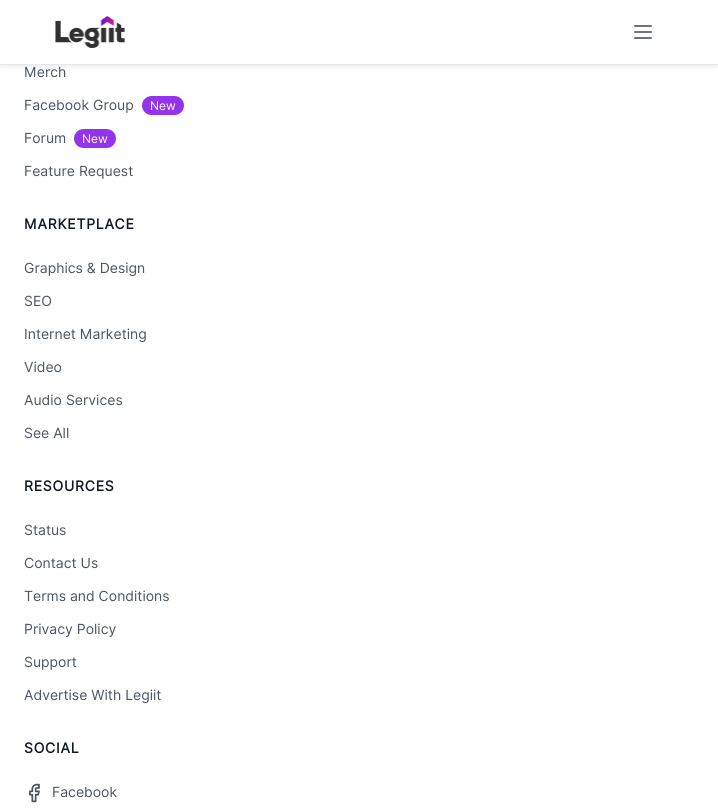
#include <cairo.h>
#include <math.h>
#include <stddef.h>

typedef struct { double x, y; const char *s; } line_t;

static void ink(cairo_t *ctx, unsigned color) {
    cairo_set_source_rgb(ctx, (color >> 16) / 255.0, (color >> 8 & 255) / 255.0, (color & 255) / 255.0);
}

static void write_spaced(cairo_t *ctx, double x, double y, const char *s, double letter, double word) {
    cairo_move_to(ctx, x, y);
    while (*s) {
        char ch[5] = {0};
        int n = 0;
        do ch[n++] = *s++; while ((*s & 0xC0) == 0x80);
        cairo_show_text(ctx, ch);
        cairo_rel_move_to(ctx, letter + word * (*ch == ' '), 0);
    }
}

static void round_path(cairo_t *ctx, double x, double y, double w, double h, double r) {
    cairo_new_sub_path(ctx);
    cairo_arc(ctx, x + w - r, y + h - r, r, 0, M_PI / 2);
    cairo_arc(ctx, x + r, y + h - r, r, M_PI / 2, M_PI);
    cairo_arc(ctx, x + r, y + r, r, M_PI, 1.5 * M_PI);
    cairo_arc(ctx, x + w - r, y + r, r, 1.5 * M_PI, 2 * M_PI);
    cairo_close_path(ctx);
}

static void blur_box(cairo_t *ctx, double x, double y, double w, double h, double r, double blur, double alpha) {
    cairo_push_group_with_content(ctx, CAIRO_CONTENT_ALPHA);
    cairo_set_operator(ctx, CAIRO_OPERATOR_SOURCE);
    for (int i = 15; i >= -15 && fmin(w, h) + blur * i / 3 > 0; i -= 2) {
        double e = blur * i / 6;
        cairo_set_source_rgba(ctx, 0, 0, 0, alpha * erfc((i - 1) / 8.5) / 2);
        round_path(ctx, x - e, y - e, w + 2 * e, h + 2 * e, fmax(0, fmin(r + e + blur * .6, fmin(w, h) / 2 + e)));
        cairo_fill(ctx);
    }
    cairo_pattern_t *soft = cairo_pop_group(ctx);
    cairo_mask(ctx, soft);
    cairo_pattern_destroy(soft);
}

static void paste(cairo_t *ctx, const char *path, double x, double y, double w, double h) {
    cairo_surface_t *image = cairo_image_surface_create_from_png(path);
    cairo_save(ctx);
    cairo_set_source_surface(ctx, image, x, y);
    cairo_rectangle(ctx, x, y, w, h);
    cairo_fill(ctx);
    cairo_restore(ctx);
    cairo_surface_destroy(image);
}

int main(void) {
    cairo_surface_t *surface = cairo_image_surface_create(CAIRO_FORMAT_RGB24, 718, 809);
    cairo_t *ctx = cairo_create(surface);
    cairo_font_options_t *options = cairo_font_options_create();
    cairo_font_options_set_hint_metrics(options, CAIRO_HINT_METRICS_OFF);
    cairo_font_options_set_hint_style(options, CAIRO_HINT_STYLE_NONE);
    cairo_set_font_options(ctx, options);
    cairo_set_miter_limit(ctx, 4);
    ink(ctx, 0xFFFFFF);
    cairo_paint(ctx);
    ink(ctx, 0x000000);
    blur_box(ctx, 0, 2, 718, 65, 0, 2, 0.07);
    ink(ctx, 0xFFFFFF);
    cairo_rectangle(ctx, 0, 0, 718, 64);
    cairo_fill(ctx);
    ink(ctx, 0xE5E7EB);
    cairo_rectangle(ctx, 0, 64, 718, 1);
    cairo_fill(ctx);
    paste(ctx, "media/1.png", 55, 16, 70, 32);
    paste(ctx, "media/2.png", 634, 25, 18, 14);
    cairo_select_font_face(ctx, "Inter", CAIRO_FONT_SLANT_NORMAL, CAIRO_FONT_WEIGHT_NORMAL);
    cairo_set_font_size(ctx, 14);
    ink(ctx, 0x4B5563);
    cairo_move_to(ctx, 24, 77);
    cairo_show_text(ctx, "Merch");
    cairo_move_to(ctx, 24, 110);
    cairo_show_text(ctx, "Facebook Group");
    ink(ctx, 0x9333EA);
    round_path(ctx, 142, 96, 42, 19, 9.5);
    cairo_fill(ctx);
    cairo_set_font_size(ctx, 12);
    ink(ctx, 0xFFFFFF);
    cairo_move_to(ctx, 150, 110);
    cairo_show_text(ctx, "New");
    cairo_set_font_size(ctx, 14);
    ink(ctx, 0x4B5563);
    cairo_move_to(ctx, 24, 143);
    cairo_show_text(ctx, "Forum");
    ink(ctx, 0x9333EA);
    round_path(ctx, 74, 129, 42, 19, 9.5);
    cairo_fill(ctx);
    cairo_set_font_size(ctx, 12);
    ink(ctx, 0xFFFFFF);
    cairo_move_to(ctx, 82, 143);
    cairo_show_text(ctx, "New");
    cairo_set_font_size(ctx, 14);
    ink(ctx, 0x4B5563);
    cairo_move_to(ctx, 24, 176);
    cairo_show_text(ctx, "Feature Request");
    cairo_select_font_face(ctx, "Inter", CAIRO_FONT_SLANT_NORMAL, CAIRO_FONT_WEIGHT_BOLD);
    ink(ctx, 0x111827);
    write_spaced(ctx, 24, 229, "MARKETPLACE", 0.75, 0);
    cairo_select_font_face(ctx, "Inter", CAIRO_FONT_SLANT_NORMAL, CAIRO_FONT_WEIGHT_NORMAL);
    ink(ctx, 0x4B5563);
    {
        static const line_t items[] = {
            {24, 273, "Graphics & Design"},
            {24, 306, "SEO"},
            {24, 339, "Internet Marketing"},
            {24, 372, "Video"},
            {24, 405, "Audio Services"},
            {24, 438, "See All"},
        };
        for (size_t i = 0; i < sizeof items / sizeof *items; i++) {
            cairo_move_to(ctx, items[i].x, items[i].y);
            cairo_show_text(ctx, items[i].s);
        }
    }
    cairo_select_font_face(ctx, "Inter", CAIRO_FONT_SLANT_NORMAL, CAIRO_FONT_WEIGHT_BOLD);
    ink(ctx, 0x111827);
    write_spaced(ctx, 24, 491, "RESOURCES", 0.75, 0);
    cairo_select_font_face(ctx, "Inter", CAIRO_FONT_SLANT_NORMAL, CAIRO_FONT_WEIGHT_NORMAL);
    ink(ctx, 0x4B5563);
    {
        static const line_t items[] = {
            {24, 535, "Status"},
            {24, 568, "Contact Us"},
            {24, 601, "Terms and Conditions"},
            {24, 634, "Privacy Policy"},
            {24, 667, "Support"},
            {24, 700, "Advertise With Legiit"},
        };
        for (size_t i = 0; i < sizeof items / sizeof *items; i++) {
            cairo_move_to(ctx, items[i].x, items[i].y);
            cairo_show_text(ctx, items[i].s);
        }
    }
    cairo_select_font_face(ctx, "Inter", CAIRO_FONT_SLANT_NORMAL, CAIRO_FONT_WEIGHT_BOLD);
    ink(ctx, 0x111827);
    write_spaced(ctx, 24, 753, "SOCIAL", 0.75, 0);
    paste(ctx, "media/3.png", 29, 783, 11, 20);
    cairo_select_font_face(ctx, "Inter", CAIRO_FONT_SLANT_NORMAL, CAIRO_FONT_WEIGHT_NORMAL);
    ink(ctx, 0x4B5563);
    cairo_move_to(ctx, 52, 797);
    cairo_show_text(ctx, "Facebook");
    cairo_surface_write_to_png(surface, "image.png");
    cairo_font_options_destroy(options);
    cairo_destroy(ctx);
    cairo_surface_destroy(surface);
    return 0;
}
